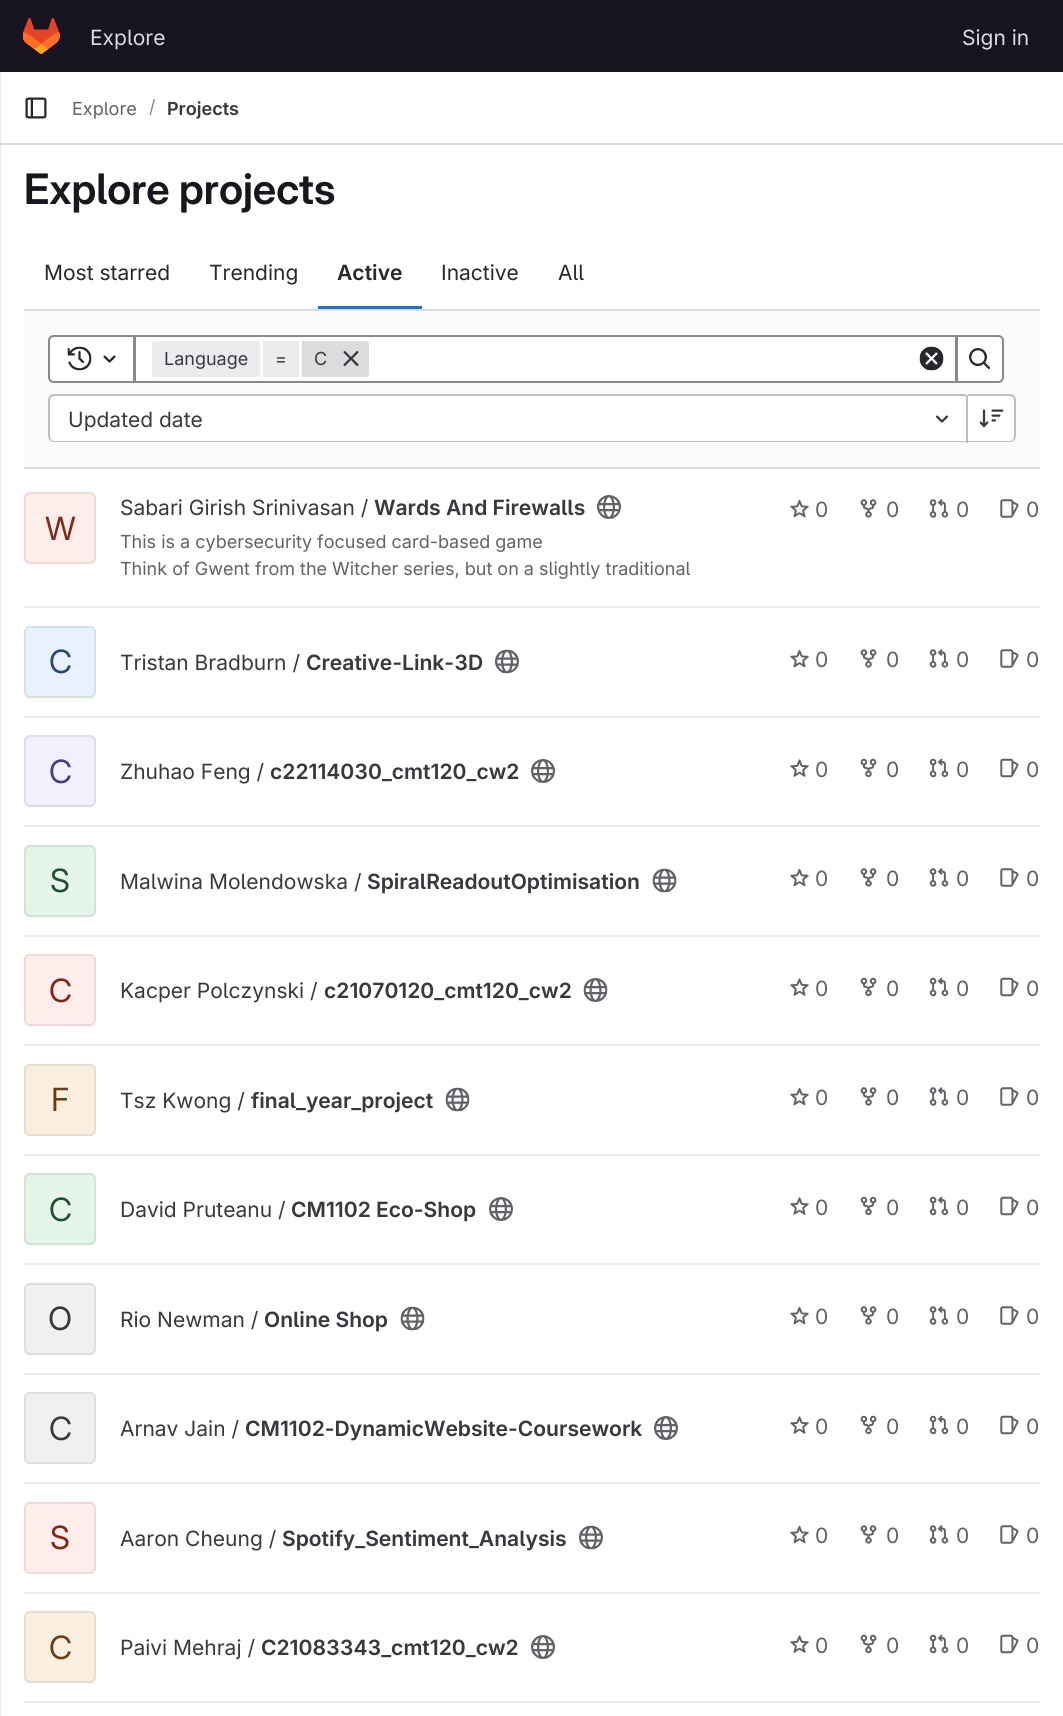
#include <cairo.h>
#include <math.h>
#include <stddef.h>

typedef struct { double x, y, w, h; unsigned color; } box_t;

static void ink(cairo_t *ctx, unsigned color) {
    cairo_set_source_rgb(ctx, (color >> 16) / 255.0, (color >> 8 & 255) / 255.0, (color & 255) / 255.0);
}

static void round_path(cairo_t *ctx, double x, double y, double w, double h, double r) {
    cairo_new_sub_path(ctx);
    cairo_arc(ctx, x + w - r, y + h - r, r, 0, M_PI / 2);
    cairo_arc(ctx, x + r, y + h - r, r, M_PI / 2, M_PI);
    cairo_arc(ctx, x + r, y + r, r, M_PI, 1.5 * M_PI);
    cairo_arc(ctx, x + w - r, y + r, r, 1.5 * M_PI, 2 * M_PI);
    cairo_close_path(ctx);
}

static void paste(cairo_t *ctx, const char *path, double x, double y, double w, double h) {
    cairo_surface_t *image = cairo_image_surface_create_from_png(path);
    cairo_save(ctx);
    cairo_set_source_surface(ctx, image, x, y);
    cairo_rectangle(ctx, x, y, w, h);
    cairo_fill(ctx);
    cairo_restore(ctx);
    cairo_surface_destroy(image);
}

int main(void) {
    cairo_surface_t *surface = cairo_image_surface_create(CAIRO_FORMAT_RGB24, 1063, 1716);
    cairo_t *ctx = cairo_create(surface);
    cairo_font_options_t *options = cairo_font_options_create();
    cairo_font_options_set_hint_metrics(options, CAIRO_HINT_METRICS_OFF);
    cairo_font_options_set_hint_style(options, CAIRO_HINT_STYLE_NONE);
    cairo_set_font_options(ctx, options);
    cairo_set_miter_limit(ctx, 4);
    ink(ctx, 0xFFFFFF);
    cairo_paint(ctx);
    ink(ctx, 0xEBEBEB);
    cairo_rectangle(ctx, 0, 72, 1, 1644);
    cairo_fill(ctx);
    ink(ctx, 0x171321);
    cairo_rectangle(ctx, 0, 0, 1063, 72);
    cairo_fill(ctx);
    paste(ctx, "media/1.png", 23, 18, 37, 36);
    cairo_select_font_face(ctx, "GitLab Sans", CAIRO_FONT_SLANT_NORMAL, CAIRO_FONT_WEIGHT_NORMAL);
    cairo_set_font_size(ctx, 21);
    ink(ctx, 0xDCDCDE);
    cairo_move_to(ctx, 90, 45);
    cairo_show_text(ctx, "Explore");
    cairo_move_to(ctx, 962, 45);
    cairo_show_text(ctx, "Sign in");
    cairo_rectangle(ctx, 0, 143, 1063, 2);
    cairo_fill(ctx);
    ink(ctx, 0xCBCBCD);
    cairo_rectangle(ctx, 0, 143, 1, 2);
    cairo_fill(ctx);
    paste(ctx, "media/2.png", 25, 97, 22, 22);
    cairo_set_font_size(ctx, 18);
    ink(ctx, 0x626168);
    cairo_move_to(ctx, 72, 115);
    cairo_show_text(ctx, "Explore");
    ink(ctx, 0x89888D);
    cairo_move_to(ctx, 149, 113);
    cairo_show_text(ctx, "/");
    cairo_select_font_face(ctx, "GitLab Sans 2 SemiBold", CAIRO_FONT_SLANT_NORMAL, CAIRO_FONT_WEIGHT_NORMAL);
    ink(ctx, 0x3A383F);
    cairo_move_to(ctx, 167, 115);
    cairo_show_text(ctx, "Projects");
    cairo_select_font_face(ctx, "GitLab Sans SemiBold", CAIRO_FONT_SLANT_NORMAL, CAIRO_FONT_WEIGHT_NORMAL);
    cairo_set_font_size(ctx, 42);
    ink(ctx, 0x18171D);
    cairo_move_to(ctx, 24, 204);
    cairo_show_text(ctx, "Explore projects");
    cairo_select_font_face(ctx, "GitLab Sans", CAIRO_FONT_SLANT_NORMAL, CAIRO_FONT_WEIGHT_NORMAL);
    cairo_set_font_size(ctx, 21);
    ink(ctx, 0x28272D);
    cairo_move_to(ctx, 44, 280);
    cairo_show_text(ctx, "Most starred");
    cairo_move_to(ctx, 209, 280);
    cairo_show_text(ctx, "Trending");
    cairo_select_font_face(ctx, "GitLab Sans 2 SemiBold", CAIRO_FONT_SLANT_NORMAL, CAIRO_FONT_WEIGHT_NORMAL);
    cairo_move_to(ctx, 337, 280);
    cairo_show_text(ctx, "Active");
    ink(ctx, 0x1F75CB);
    cairo_rectangle(ctx, 318, 306, 104, 3);
    cairo_fill(ctx);
    cairo_select_font_face(ctx, "GitLab Sans", CAIRO_FONT_SLANT_NORMAL, CAIRO_FONT_WEIGHT_NORMAL);
    ink(ctx, 0x28272D);
    cairo_move_to(ctx, 441, 280);
    cairo_show_text(ctx, "Inactive");
    cairo_move_to(ctx, 558, 280);
    cairo_show_text(ctx, "All");
    {
        static const box_t items[] = {
            {24, 311, 1016, 156, 0xFBFAFD},
            {24, 309, 1016, 2, 0xDCDCDE},
            {24, 467, 1016, 2, 0xDCDCDE},
        };
        for (size_t i = 0; i < sizeof items / sizeof *items; i++) {
            ink(ctx, items[i].color);
            cairo_rectangle(ctx, items[i].x, items[i].y, items[i].w, items[i].h);
            cairo_fill(ctx);
        }
    }
    ink(ctx, 0xFFFFFF);
    cairo_rectangle(ctx, 135, 336, 821, 46);
    cairo_fill_preserve(ctx);
    ink(ctx, 0x89888D);
    cairo_stroke(ctx);
    ink(ctx, 0xFFFFFF);
    cairo_new_path(ctx);
    cairo_move_to(ctx, 54, 336);
    cairo_line_to(ctx, 134, 336);
    cairo_line_to(ctx, 134, 382);
    cairo_line_to(ctx, 54, 382);
    cairo_curve_to(ctx, 51, 382, 49, 380, 49, 377);
    cairo_line_to(ctx, 49, 341);
    cairo_curve_to(ctx, 49, 338, 51, 336, 54, 336);
    cairo_close_path(ctx);
    cairo_fill_preserve(ctx);
    ink(ctx, 0x89888D);
    cairo_stroke(ctx);
    paste(ctx, "media/3.png", 67, 346, 25, 25);
    paste(ctx, "media/4.png", 103, 355, 13, 8);
    ink(ctx, 0xECECEF);
    cairo_new_path(ctx);
    cairo_move_to(ctx, 155, 341);
    cairo_line_to(ctx, 260, 341);
    cairo_line_to(ctx, 260, 377);
    cairo_line_to(ctx, 155, 377);
    cairo_curve_to(ctx, 153.5, 377, 152, 375.5, 152, 374);
    cairo_line_to(ctx, 152, 344);
    cairo_curve_to(ctx, 152, 342.5, 153.5, 341, 155, 341);
    cairo_close_path(ctx);
    cairo_fill(ctx);
    cairo_set_font_size(ctx, 18);
    ink(ctx, 0x3A383F);
    cairo_move_to(ctx, 164, 365);
    cairo_show_text(ctx, "Language");
    ink(ctx, 0xECECEF);
    cairo_rectangle(ctx, 263, 341, 36, 36);
    cairo_fill(ctx);
    ink(ctx, 0x3A383F);
    cairo_move_to(ctx, 275, 365);
    cairo_show_text(ctx, "=");
    ink(ctx, 0xDCDCDE);
    cairo_new_path(ctx);
    cairo_move_to(ctx, 302, 341);
    cairo_line_to(ctx, 366, 341);
    cairo_curve_to(ctx, 367.5, 341, 369, 342.5, 369, 344);
    cairo_line_to(ctx, 369, 374);
    cairo_curve_to(ctx, 369, 375.5, 367.5, 377, 366, 377);
    cairo_line_to(ctx, 302, 377);
    cairo_close_path(ctx);
    cairo_fill(ctx);
    ink(ctx, 0x3A383F);
    cairo_move_to(ctx, 314, 365);
    cairo_show_text(ctx, "C");
    paste(ctx, "media/5.png", 343, 351, 16, 15);
    paste(ctx, "media/6.png", 919, 346, 25, 25);
    ink(ctx, 0xFFFFFF);
    cairo_new_path(ctx);
    cairo_move_to(ctx, 957, 336);
    cairo_line_to(ctx, 998, 336);
    cairo_curve_to(ctx, 1001, 336, 1003, 338, 1003, 341);
    cairo_line_to(ctx, 1003, 377);
    cairo_curve_to(ctx, 1003, 380, 1001, 382, 998, 382);
    cairo_line_to(ctx, 957, 382);
    cairo_close_path(ctx);
    cairo_fill_preserve(ctx);
    ink(ctx, 0x89888D);
    cairo_stroke(ctx);
    paste(ctx, "media/7.png", 969, 348, 21, 21);
    ink(ctx, 0xFFFFFF);
    cairo_new_path(ctx);
    cairo_move_to(ctx, 55, 396);
    cairo_line_to(ctx, 966, 396);
    cairo_line_to(ctx, 966, 441);
    cairo_line_to(ctx, 55, 441);
    cairo_curve_to(ctx, 52, 441, 50, 439, 50, 436);
    cairo_line_to(ctx, 50, 401);
    cairo_curve_to(ctx, 50, 398, 52, 396, 55, 396);
    cairo_close_path(ctx);
    cairo_fill(ctx);
    ink(ctx, 0xBFBFC3);
    cairo_set_fill_rule(ctx, CAIRO_FILL_RULE_EVEN_ODD);
    cairo_new_path(ctx);
    cairo_move_to(ctx, 54, 394);
    cairo_line_to(ctx, 966, 394);
    cairo_line_to(ctx, 966, 442);
    cairo_line_to(ctx, 54, 442);
    cairo_curve_to(ctx, 51, 442, 48, 440, 48, 436);
    cairo_line_to(ctx, 48, 400);
    cairo_curve_to(ctx, 48, 397, 51, 394, 54, 394);
    cairo_close_path(ctx);
    cairo_move_to(ctx, 54, 396);
    cairo_line_to(ctx, 966, 396);
    cairo_line_to(ctx, 966, 441);
    cairo_line_to(ctx, 54, 441);
    cairo_curve_to(ctx, 52, 441, 50, 439, 50, 436);
    cairo_line_to(ctx, 50, 400);
    cairo_curve_to(ctx, 50, 398, 52, 396, 54, 396);
    cairo_close_path(ctx);
    cairo_fill(ctx);
    cairo_save(ctx);
    cairo_set_fill_rule(ctx, CAIRO_FILL_RULE_WINDING);
    cairo_rectangle(ctx, 68, 407, 135, 24);
    cairo_clip(ctx);
    cairo_set_font_size(ctx, 21);
    ink(ctx, 0x3A383F);
    cairo_move_to(ctx, 68, 427);
    cairo_show_text(ctx, "Updated date");
    cairo_restore(ctx);
    paste(ctx, "media/8.png", 936, 415, 12, 8);
    ink(ctx, 0xFFFFFF);
    cairo_new_path(ctx);
    cairo_move_to(ctx, 968, 396);
    cairo_line_to(ctx, 1009, 396);
    cairo_curve_to(ctx, 1012, 396, 1014, 398, 1014, 401);
    cairo_line_to(ctx, 1014, 436);
    cairo_curve_to(ctx, 1014, 439, 1012, 441, 1009, 441);
    cairo_line_to(ctx, 968, 441);
    cairo_close_path(ctx);
    cairo_fill(ctx);
    ink(ctx, 0xBFBFC3);
    cairo_new_path(ctx);
    cairo_move_to(ctx, 968, 394);
    cairo_line_to(ctx, 1010, 394);
    cairo_curve_to(ctx, 1013, 394, 1016, 397, 1016, 400);
    cairo_line_to(ctx, 1016, 436);
    cairo_curve_to(ctx, 1016, 440, 1013, 442, 1010, 442);
    cairo_line_to(ctx, 968, 442);
    cairo_close_path(ctx);
    cairo_move_to(ctx, 968, 396);
    cairo_line_to(ctx, 1010, 396);
    cairo_curve_to(ctx, 1012, 396, 1014, 398, 1014, 400);
    cairo_line_to(ctx, 1014, 436);
    cairo_curve_to(ctx, 1014, 439, 1012, 441, 1010, 441);
    cairo_line_to(ctx, 968, 441);
    cairo_close_path(ctx);
    cairo_fill(ctx);
    cairo_rectangle(ctx, 966, 395, 2, 48);
    cairo_fill(ctx);
    paste(ctx, "media/9.png", 979, 409, 25, 19);
    ink(ctx, 0xECECEF);
    cairo_rectangle(ctx, 24, 606, 1016, 2);
    cairo_fill(ctx);
    cairo_set_font_size(ctx, 21);
    ink(ctx, 0x3A383F);
    cairo_move_to(ctx, 120, 515);
    cairo_show_text(ctx, "Sabari Girish Srinivasan /");
    cairo_select_font_face(ctx, "GitLab Sans 2 SemiBold", CAIRO_FONT_SLANT_NORMAL, CAIRO_FONT_WEIGHT_NORMAL);
    cairo_move_to(ctx, 374, 515);
    cairo_show_text(ctx, "Wards And Firewalls");
    paste(ctx, "media/10.png", 597, 495, 24, 24);
    cairo_select_font_face(ctx, "GitLab Sans", CAIRO_FONT_SLANT_NORMAL, CAIRO_FONT_WEIGHT_NORMAL);
    cairo_set_font_size(ctx, 18);
    ink(ctx, 0x626168);
    cairo_move_to(ctx, 120, 548);
    cairo_show_text(ctx, "This is a cybersecurity focused card-based game");
    cairo_move_to(ctx, 120, 575);
    cairo_show_text(ctx, "Think of Gwent from the Witcher series, but on a slightly traditional");
    paste(ctx, "media/11.png", 790, 499, 19, 19);
    cairo_set_font_size(ctx, 21);
    cairo_move_to(ctx, 815, 517);
    cairo_show_text(ctx, "0");
    paste(ctx, "media/12.png", 860, 499, 17, 19);
    cairo_move_to(ctx, 886, 517);
    cairo_show_text(ctx, "0");
    paste(ctx, "media/13.png", 929, 499, 20, 19);
    cairo_move_to(ctx, 956, 517);
    cairo_show_text(ctx, "0");
    paste(ctx, "media/14.png", 1000, 499, 19, 19);
    cairo_move_to(ctx, 1026, 517);
    cairo_show_text(ctx, "0");
    ink(ctx, 0xFEEDEB);
    round_path(ctx, 24, 492, 72, 72, 6);
    cairo_fill(ctx);
    round_path(ctx, 25, 493, 70, 70, 5);
    cairo_set_source_rgba(ctx, 0.02, 0.02, 0.024, 0.08);
    cairo_stroke(ctx);
    cairo_select_font_face(ctx, "GitLab Sans 2", CAIRO_FONT_SLANT_NORMAL, CAIRO_FONT_WEIGHT_NORMAL);
    cairo_set_font_size(ctx, 32);
    ink(ctx, 0x812713);
    cairo_move_to(ctx, 45, 540);
    cairo_show_text(ctx, "W");
    ink(ctx, 0xECECEF);
    cairo_rectangle(ctx, 24, 716, 1016, 2);
    cairo_fill(ctx);
    ink(ctx, 0xE7F2FC);
    round_path(ctx, 24, 626, 72, 72, 6);
    cairo_fill(ctx);
    round_path(ctx, 25, 627, 70, 70, 5);
    cairo_set_source_rgba(ctx, 0.02, 0.02, 0.024, 0.08);
    cairo_stroke(ctx);
    cairo_select_font_face(ctx, "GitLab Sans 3", CAIRO_FONT_SLANT_NORMAL, CAIRO_FONT_WEIGHT_NORMAL);
    ink(ctx, 0x284779);
    cairo_move_to(ctx, 49, 673);
    cairo_show_text(ctx, "C");
    cairo_select_font_face(ctx, "GitLab Sans", CAIRO_FONT_SLANT_NORMAL, CAIRO_FONT_WEIGHT_NORMAL);
    cairo_set_font_size(ctx, 21);
    ink(ctx, 0x3A383F);
    cairo_move_to(ctx, 120, 670);
    cairo_show_text(ctx, "Tristan Bradburn /");
    cairo_select_font_face(ctx, "GitLab Sans 2 SemiBold", CAIRO_FONT_SLANT_NORMAL, CAIRO_FONT_WEIGHT_NORMAL);
    cairo_move_to(ctx, 306, 670);
    cairo_show_text(ctx, "Creative-Link-3D");
    paste(ctx, "media/15.png", 495, 649, 24, 25);
    paste(ctx, "media/16.png", 790, 649, 19, 19);
    cairo_select_font_face(ctx, "GitLab Sans", CAIRO_FONT_SLANT_NORMAL, CAIRO_FONT_WEIGHT_NORMAL);
    ink(ctx, 0x626168);
    cairo_move_to(ctx, 815, 667);
    cairo_show_text(ctx, "0");
    paste(ctx, "media/17.png", 860, 649, 17, 19);
    cairo_move_to(ctx, 886, 667);
    cairo_show_text(ctx, "0");
    paste(ctx, "media/13.png", 929, 649, 20, 19);
    cairo_move_to(ctx, 956, 667);
    cairo_show_text(ctx, "0");
    paste(ctx, "media/18.png", 1000, 649, 19, 19);
    cairo_move_to(ctx, 1026, 667);
    cairo_show_text(ctx, "0");
    ink(ctx, 0xECECEF);
    cairo_rectangle(ctx, 24, 825, 1016, 2);
    cairo_fill(ctx);
    ink(ctx, 0xF3EFFC);
    round_path(ctx, 24, 735, 72, 72, 6);
    cairo_fill(ctx);
    round_path(ctx, 25, 736, 70, 70, 5);
    cairo_set_source_rgba(ctx, 0.02, 0.02, 0.024, 0.08);
    cairo_stroke(ctx);
    cairo_select_font_face(ctx, "GitLab Sans 3", CAIRO_FONT_SLANT_NORMAL, CAIRO_FONT_WEIGHT_NORMAL);
    cairo_set_font_size(ctx, 32);
    ink(ctx, 0x493C83);
    cairo_move_to(ctx, 49, 783);
    cairo_show_text(ctx, "C");
    cairo_select_font_face(ctx, "GitLab Sans", CAIRO_FONT_SLANT_NORMAL, CAIRO_FONT_WEIGHT_NORMAL);
    cairo_set_font_size(ctx, 21);
    ink(ctx, 0x3A383F);
    cairo_move_to(ctx, 120, 779);
    cairo_show_text(ctx, "Zhuhao Feng /");
    cairo_select_font_face(ctx, "GitLab Sans 2 SemiBold", CAIRO_FONT_SLANT_NORMAL, CAIRO_FONT_WEIGHT_NORMAL);
    cairo_move_to(ctx, 270, 779);
    cairo_show_text(ctx, "c22114030_cmt120_cw2");
    paste(ctx, "media/19.png", 531, 759, 24, 24);
    paste(ctx, "media/20.png", 790, 759, 19, 18);
    cairo_select_font_face(ctx, "GitLab Sans", CAIRO_FONT_SLANT_NORMAL, CAIRO_FONT_WEIGHT_NORMAL);
    ink(ctx, 0x626168);
    cairo_move_to(ctx, 815, 777);
    cairo_show_text(ctx, "0");
    paste(ctx, "media/21.png", 860, 758, 17, 20);
    cairo_move_to(ctx, 886, 777);
    cairo_show_text(ctx, "0");
    paste(ctx, "media/22.png", 929, 758, 20, 20);
    cairo_move_to(ctx, 956, 777);
    cairo_show_text(ctx, "0");
    paste(ctx, "media/23.png", 1000, 758, 19, 20);
    cairo_move_to(ctx, 1026, 777);
    cairo_show_text(ctx, "0");
    ink(ctx, 0xECECEF);
    cairo_rectangle(ctx, 24, 935, 1016, 2);
    cairo_fill(ctx);
    ink(ctx, 0xE5F5EA);
    round_path(ctx, 24, 845, 72, 72, 6);
    cairo_fill(ctx);
    round_path(ctx, 25, 846, 70, 70, 5);
    cairo_set_source_rgba(ctx, 0.02, 0.02, 0.024, 0.08);
    cairo_stroke(ctx);
    cairo_select_font_face(ctx, "GitLab Sans 2", CAIRO_FONT_SLANT_NORMAL, CAIRO_FONT_WEIGHT_NORMAL);
    cairo_set_font_size(ctx, 32);
    ink(ctx, 0x225131);
    cairo_move_to(ctx, 50, 892);
    cairo_show_text(ctx, "S");
    cairo_select_font_face(ctx, "GitLab Sans", CAIRO_FONT_SLANT_NORMAL, CAIRO_FONT_WEIGHT_NORMAL);
    cairo_set_font_size(ctx, 21);
    ink(ctx, 0x3A383F);
    cairo_move_to(ctx, 120, 889);
    cairo_show_text(ctx, "Malwina Molendowska /");
    cairo_select_font_face(ctx, "GitLab Sans 2 SemiBold", CAIRO_FONT_SLANT_NORMAL, CAIRO_FONT_WEIGHT_NORMAL);
    cairo_move_to(ctx, 367, 889);
    cairo_show_text(ctx, "SpiralReadoutOptimisation");
    paste(ctx, "media/24.png", 652, 868, 25, 25);
    paste(ctx, "media/16.png", 790, 868, 19, 19);
    cairo_select_font_face(ctx, "GitLab Sans", CAIRO_FONT_SLANT_NORMAL, CAIRO_FONT_WEIGHT_NORMAL);
    ink(ctx, 0x626168);
    cairo_move_to(ctx, 815, 886);
    cairo_show_text(ctx, "0");
    paste(ctx, "media/17.png", 860, 868, 17, 19);
    cairo_move_to(ctx, 886, 886);
    cairo_show_text(ctx, "0");
    paste(ctx, "media/13.png", 929, 868, 20, 19);
    cairo_move_to(ctx, 956, 886);
    cairo_show_text(ctx, "0");
    paste(ctx, "media/18.png", 1000, 868, 19, 19);
    cairo_move_to(ctx, 1026, 886);
    cairo_show_text(ctx, "0");
    ink(ctx, 0xECECEF);
    cairo_rectangle(ctx, 24, 1044, 1016, 2);
    cairo_fill(ctx);
    ink(ctx, 0xFEEDEB);
    round_path(ctx, 24, 954, 72, 72, 6);
    cairo_fill(ctx);
    round_path(ctx, 25, 955, 70, 70, 5);
    cairo_set_source_rgba(ctx, 0.02, 0.02, 0.024, 0.08);
    cairo_stroke(ctx);
    cairo_select_font_face(ctx, "GitLab Sans 3", CAIRO_FONT_SLANT_NORMAL, CAIRO_FONT_WEIGHT_NORMAL);
    cairo_set_font_size(ctx, 32);
    ink(ctx, 0x812713);
    cairo_move_to(ctx, 49, 1002);
    cairo_show_text(ctx, "C");
    cairo_select_font_face(ctx, "GitLab Sans", CAIRO_FONT_SLANT_NORMAL, CAIRO_FONT_WEIGHT_NORMAL);
    cairo_set_font_size(ctx, 21);
    ink(ctx, 0x3A383F);
    cairo_move_to(ctx, 120, 998);
    cairo_show_text(ctx, "Kacper Polczynski /");
    cairo_select_font_face(ctx, "GitLab Sans 2 SemiBold", CAIRO_FONT_SLANT_NORMAL, CAIRO_FONT_WEIGHT_NORMAL);
    cairo_move_to(ctx, 324, 998);
    cairo_show_text(ctx, "c21070120_cmt120_cw2");
    paste(ctx, "media/25.png", 583, 978, 25, 24);
    paste(ctx, "media/26.png", 790, 978, 19, 18);
    cairo_select_font_face(ctx, "GitLab Sans", CAIRO_FONT_SLANT_NORMAL, CAIRO_FONT_WEIGHT_NORMAL);
    ink(ctx, 0x626168);
    cairo_move_to(ctx, 815, 996);
    cairo_show_text(ctx, "0");
    paste(ctx, "media/21.png", 860, 977, 17, 20);
    cairo_move_to(ctx, 886, 996);
    cairo_show_text(ctx, "0");
    paste(ctx, "media/27.png", 929, 977, 20, 20);
    cairo_move_to(ctx, 956, 996);
    cairo_show_text(ctx, "0");
    paste(ctx, "media/28.png", 1000, 977, 19, 20);
    cairo_move_to(ctx, 1026, 996);
    cairo_show_text(ctx, "0");
    ink(ctx, 0xECECEF);
    cairo_rectangle(ctx, 24, 1154, 1016, 2);
    cairo_fill(ctx);
    ink(ctx, 0xFAEFDE);
    round_path(ctx, 24, 1064, 72, 72, 6);
    cairo_fill(ctx);
    round_path(ctx, 25, 1065, 70, 70, 5);
    cairo_set_source_rgba(ctx, 0.02, 0.02, 0.024, 0.08);
    cairo_stroke(ctx);
    cairo_select_font_face(ctx, "GitLab Sans 2", CAIRO_FONT_SLANT_NORMAL, CAIRO_FONT_WEIGHT_NORMAL);
    cairo_set_font_size(ctx, 32);
    ink(ctx, 0x693C14);
    cairo_move_to(ctx, 51, 1111);
    cairo_show_text(ctx, "F");
    cairo_select_font_face(ctx, "GitLab Sans", CAIRO_FONT_SLANT_NORMAL, CAIRO_FONT_WEIGHT_NORMAL);
    cairo_set_font_size(ctx, 21);
    ink(ctx, 0x3A383F);
    cairo_move_to(ctx, 120, 1108);
    cairo_show_text(ctx, "Tsz Kwong /");
    cairo_select_font_face(ctx, "GitLab Sans 2 SemiBold", CAIRO_FONT_SLANT_NORMAL, CAIRO_FONT_WEIGHT_NORMAL);
    cairo_move_to(ctx, 251, 1108);
    cairo_show_text(ctx, "final_year_project");
    paste(ctx, "media/24.png", 445, 1087, 25, 25);
    paste(ctx, "media/16.png", 790, 1087, 19, 19);
    cairo_select_font_face(ctx, "GitLab Sans", CAIRO_FONT_SLANT_NORMAL, CAIRO_FONT_WEIGHT_NORMAL);
    ink(ctx, 0x626168);
    cairo_move_to(ctx, 815, 1105);
    cairo_show_text(ctx, "0");
    paste(ctx, "media/29.png", 860, 1087, 17, 19);
    cairo_move_to(ctx, 886, 1105);
    cairo_show_text(ctx, "0");
    paste(ctx, "media/13.png", 929, 1087, 20, 19);
    cairo_move_to(ctx, 956, 1105);
    cairo_show_text(ctx, "0");
    paste(ctx, "media/18.png", 1000, 1087, 19, 19);
    cairo_move_to(ctx, 1026, 1105);
    cairo_show_text(ctx, "0");
    ink(ctx, 0xECECEF);
    cairo_rectangle(ctx, 24, 1263, 1016, 2);
    cairo_fill(ctx);
    ink(ctx, 0xE5F5EA);
    round_path(ctx, 24, 1173, 72, 72, 6);
    cairo_fill(ctx);
    round_path(ctx, 25, 1174, 70, 70, 5);
    cairo_set_source_rgba(ctx, 0.02, 0.02, 0.024, 0.08);
    cairo_stroke(ctx);
    cairo_select_font_face(ctx, "GitLab Sans 3", CAIRO_FONT_SLANT_NORMAL, CAIRO_FONT_WEIGHT_NORMAL);
    cairo_set_font_size(ctx, 32);
    ink(ctx, 0x225131);
    cairo_move_to(ctx, 49, 1221);
    cairo_show_text(ctx, "C");
    cairo_select_font_face(ctx, "GitLab Sans", CAIRO_FONT_SLANT_NORMAL, CAIRO_FONT_WEIGHT_NORMAL);
    cairo_set_font_size(ctx, 21);
    ink(ctx, 0x3A383F);
    cairo_move_to(ctx, 120, 1217);
    cairo_show_text(ctx, "David Pruteanu /");
    cairo_select_font_face(ctx, "GitLab Sans 2 SemiBold", CAIRO_FONT_SLANT_NORMAL, CAIRO_FONT_WEIGHT_NORMAL);
    cairo_move_to(ctx, 291, 1217);
    cairo_show_text(ctx, "CM1102 Eco-Shop");
    paste(ctx, "media/30.png", 489, 1197, 24, 24);
    paste(ctx, "media/26.png", 790, 1197, 19, 18);
    cairo_select_font_face(ctx, "GitLab Sans", CAIRO_FONT_SLANT_NORMAL, CAIRO_FONT_WEIGHT_NORMAL);
    ink(ctx, 0x626168);
    cairo_move_to(ctx, 815, 1215);
    cairo_show_text(ctx, "0");
    paste(ctx, "media/21.png", 860, 1196, 17, 20);
    cairo_move_to(ctx, 886, 1215);
    cairo_show_text(ctx, "0");
    paste(ctx, "media/27.png", 929, 1196, 20, 20);
    cairo_move_to(ctx, 956, 1215);
    cairo_show_text(ctx, "0");
    paste(ctx, "media/28.png", 1000, 1196, 19, 20);
    cairo_move_to(ctx, 1026, 1215);
    cairo_show_text(ctx, "0");
    ink(ctx, 0xECECEF);
    cairo_rectangle(ctx, 24, 1373, 1016, 2);
    cairo_fill(ctx);
    ink(ctx, 0xF0F0F1);
    round_path(ctx, 24, 1283, 72, 72, 6);
    cairo_fill(ctx);
    round_path(ctx, 25, 1284, 70, 70, 5);
    cairo_set_source_rgba(ctx, 0.02, 0.02, 0.024, 0.08);
    cairo_stroke(ctx);
    cairo_select_font_face(ctx, "GitLab Sans 2", CAIRO_FONT_SLANT_NORMAL, CAIRO_FONT_WEIGHT_NORMAL);
    cairo_set_font_size(ctx, 32);
    ink(ctx, 0x3A383F);
    cairo_move_to(ctx, 48, 1330);
    cairo_show_text(ctx, "O");
    cairo_select_font_face(ctx, "GitLab Sans", CAIRO_FONT_SLANT_NORMAL, CAIRO_FONT_WEIGHT_NORMAL);
    cairo_set_font_size(ctx, 21);
    cairo_move_to(ctx, 120, 1327);
    cairo_show_text(ctx, "Rio Newman /");
    cairo_select_font_face(ctx, "GitLab Sans 2 SemiBold", CAIRO_FONT_SLANT_NORMAL, CAIRO_FONT_WEIGHT_NORMAL);
    cairo_move_to(ctx, 264, 1327);
    cairo_show_text(ctx, "Online Shop");
    paste(ctx, "media/31.png", 400, 1306, 25, 25);
    paste(ctx, "media/16.png", 790, 1306, 19, 19);
    cairo_select_font_face(ctx, "GitLab Sans", CAIRO_FONT_SLANT_NORMAL, CAIRO_FONT_WEIGHT_NORMAL);
    ink(ctx, 0x626168);
    cairo_move_to(ctx, 815, 1324);
    cairo_show_text(ctx, "0");
    paste(ctx, "media/17.png", 860, 1306, 17, 19);
    cairo_move_to(ctx, 886, 1324);
    cairo_show_text(ctx, "0");
    paste(ctx, "media/13.png", 929, 1306, 20, 19);
    cairo_move_to(ctx, 956, 1324);
    cairo_show_text(ctx, "0");
    paste(ctx, "media/18.png", 1000, 1306, 19, 19);
    cairo_move_to(ctx, 1026, 1324);
    cairo_show_text(ctx, "0");
    ink(ctx, 0xECECEF);
    cairo_rectangle(ctx, 24, 1482, 1016, 2);
    cairo_fill(ctx);
    ink(ctx, 0xF0F0F1);
    round_path(ctx, 24, 1392, 72, 72, 6);
    cairo_fill(ctx);
    round_path(ctx, 25, 1393, 70, 70, 5);
    cairo_set_source_rgba(ctx, 0.02, 0.02, 0.024, 0.08);
    cairo_stroke(ctx);
    cairo_select_font_face(ctx, "GitLab Sans 3", CAIRO_FONT_SLANT_NORMAL, CAIRO_FONT_WEIGHT_NORMAL);
    cairo_set_font_size(ctx, 32);
    ink(ctx, 0x3A383F);
    cairo_move_to(ctx, 49, 1440);
    cairo_show_text(ctx, "C");
    cairo_select_font_face(ctx, "GitLab Sans", CAIRO_FONT_SLANT_NORMAL, CAIRO_FONT_WEIGHT_NORMAL);
    cairo_set_font_size(ctx, 21);
    cairo_move_to(ctx, 120, 1436);
    cairo_show_text(ctx, "Arnav Jain /");
    cairo_select_font_face(ctx, "GitLab Sans 2 SemiBold", CAIRO_FONT_SLANT_NORMAL, CAIRO_FONT_WEIGHT_NORMAL);
    cairo_move_to(ctx, 245, 1436);
    cairo_show_text(ctx, "CM1102-DynamicWebsite-Coursework");
    paste(ctx, "media/32.png", 654, 1416, 24, 24);
    paste(ctx, "media/26.png", 790, 1416, 19, 18);
    cairo_select_font_face(ctx, "GitLab Sans", CAIRO_FONT_SLANT_NORMAL, CAIRO_FONT_WEIGHT_NORMAL);
    ink(ctx, 0x626168);
    cairo_move_to(ctx, 815, 1434);
    cairo_show_text(ctx, "0");
    paste(ctx, "media/21.png", 860, 1415, 17, 20);
    cairo_move_to(ctx, 886, 1434);
    cairo_show_text(ctx, "0");
    paste(ctx, "media/33.png", 929, 1415, 20, 20);
    cairo_move_to(ctx, 956, 1434);
    cairo_show_text(ctx, "0");
    paste(ctx, "media/28.png", 1000, 1415, 19, 20);
    cairo_move_to(ctx, 1026, 1434);
    cairo_show_text(ctx, "0");
    ink(ctx, 0xECECEF);
    cairo_rectangle(ctx, 24, 1592, 1016, 2);
    cairo_fill(ctx);
    ink(ctx, 0xFEEDEB);
    round_path(ctx, 24, 1502, 72, 72, 6);
    cairo_fill(ctx);
    round_path(ctx, 25, 1503, 70, 70, 5);
    cairo_set_source_rgba(ctx, 0.02, 0.02, 0.024, 0.08);
    cairo_stroke(ctx);
    cairo_select_font_face(ctx, "GitLab Sans 2", CAIRO_FONT_SLANT_NORMAL, CAIRO_FONT_WEIGHT_NORMAL);
    cairo_set_font_size(ctx, 32);
    ink(ctx, 0x812713);
    cairo_move_to(ctx, 50, 1549);
    cairo_show_text(ctx, "S");
    cairo_select_font_face(ctx, "GitLab Sans", CAIRO_FONT_SLANT_NORMAL, CAIRO_FONT_WEIGHT_NORMAL);
    cairo_set_font_size(ctx, 21);
    ink(ctx, 0x3A383F);
    cairo_move_to(ctx, 120, 1546);
    cairo_show_text(ctx, "Aaron Cheung /");
    cairo_select_font_face(ctx, "GitLab Sans 2 SemiBold", CAIRO_FONT_SLANT_NORMAL, CAIRO_FONT_WEIGHT_NORMAL);
    cairo_move_to(ctx, 282, 1546);
    cairo_show_text(ctx, "Spotify_Sentiment_Analysis");
    paste(ctx, "media/34.png", 579, 1525, 24, 25);
    paste(ctx, "media/16.png", 790, 1525, 19, 19);
    cairo_select_font_face(ctx, "GitLab Sans", CAIRO_FONT_SLANT_NORMAL, CAIRO_FONT_WEIGHT_NORMAL);
    ink(ctx, 0x626168);
    cairo_move_to(ctx, 815, 1543);
    cairo_show_text(ctx, "0");
    paste(ctx, "media/17.png", 860, 1525, 17, 19);
    cairo_move_to(ctx, 886, 1543);
    cairo_show_text(ctx, "0");
    paste(ctx, "media/13.png", 929, 1525, 20, 19);
    cairo_move_to(ctx, 956, 1543);
    cairo_show_text(ctx, "0");
    paste(ctx, "media/18.png", 1000, 1525, 19, 19);
    cairo_move_to(ctx, 1026, 1543);
    cairo_show_text(ctx, "0");
    ink(ctx, 0xECECEF);
    cairo_rectangle(ctx, 24, 1701, 1016, 2);
    cairo_fill(ctx);
    ink(ctx, 0xFAEFDE);
    round_path(ctx, 24, 1611, 72, 72, 6);
    cairo_fill(ctx);
    round_path(ctx, 25, 1612, 70, 70, 5);
    cairo_set_source_rgba(ctx, 0.02, 0.02, 0.024, 0.08);
    cairo_stroke(ctx);
    cairo_select_font_face(ctx, "GitLab Sans 3", CAIRO_FONT_SLANT_NORMAL, CAIRO_FONT_WEIGHT_NORMAL);
    cairo_set_font_size(ctx, 32);
    ink(ctx, 0x693C14);
    cairo_move_to(ctx, 49, 1659);
    cairo_show_text(ctx, "C");
    cairo_select_font_face(ctx, "GitLab Sans", CAIRO_FONT_SLANT_NORMAL, CAIRO_FONT_WEIGHT_NORMAL);
    cairo_set_font_size(ctx, 21);
    ink(ctx, 0x3A383F);
    cairo_move_to(ctx, 120, 1655);
    cairo_show_text(ctx, "Paivi Mehraj /");
    cairo_select_font_face(ctx, "GitLab Sans 2 SemiBold", CAIRO_FONT_SLANT_NORMAL, CAIRO_FONT_WEIGHT_NORMAL);
    cairo_move_to(ctx, 261, 1655);
    cairo_show_text(ctx, "C21083343_cmt120_cw2");
    paste(ctx, "media/35.png", 531, 1635, 24, 24);
    paste(ctx, "media/26.png", 790, 1635, 19, 18);
    cairo_select_font_face(ctx, "GitLab Sans", CAIRO_FONT_SLANT_NORMAL, CAIRO_FONT_WEIGHT_NORMAL);
    ink(ctx, 0x626168);
    cairo_move_to(ctx, 815, 1653);
    cairo_show_text(ctx, "0");
    paste(ctx, "media/21.png", 860, 1634, 17, 20);
    cairo_move_to(ctx, 886, 1653);
    cairo_show_text(ctx, "0");
    paste(ctx, "media/27.png", 929, 1634, 20, 20);
    cairo_move_to(ctx, 956, 1653);
    cairo_show_text(ctx, "0");
    paste(ctx, "media/28.png", 1000, 1634, 19, 20);
    cairo_move_to(ctx, 1026, 1653);
    cairo_show_text(ctx, "0");
    cairo_surface_write_to_png(surface, "image.png");
    cairo_font_options_destroy(options);
    cairo_destroy(ctx);
    cairo_surface_destroy(surface);
    return 0;
}
